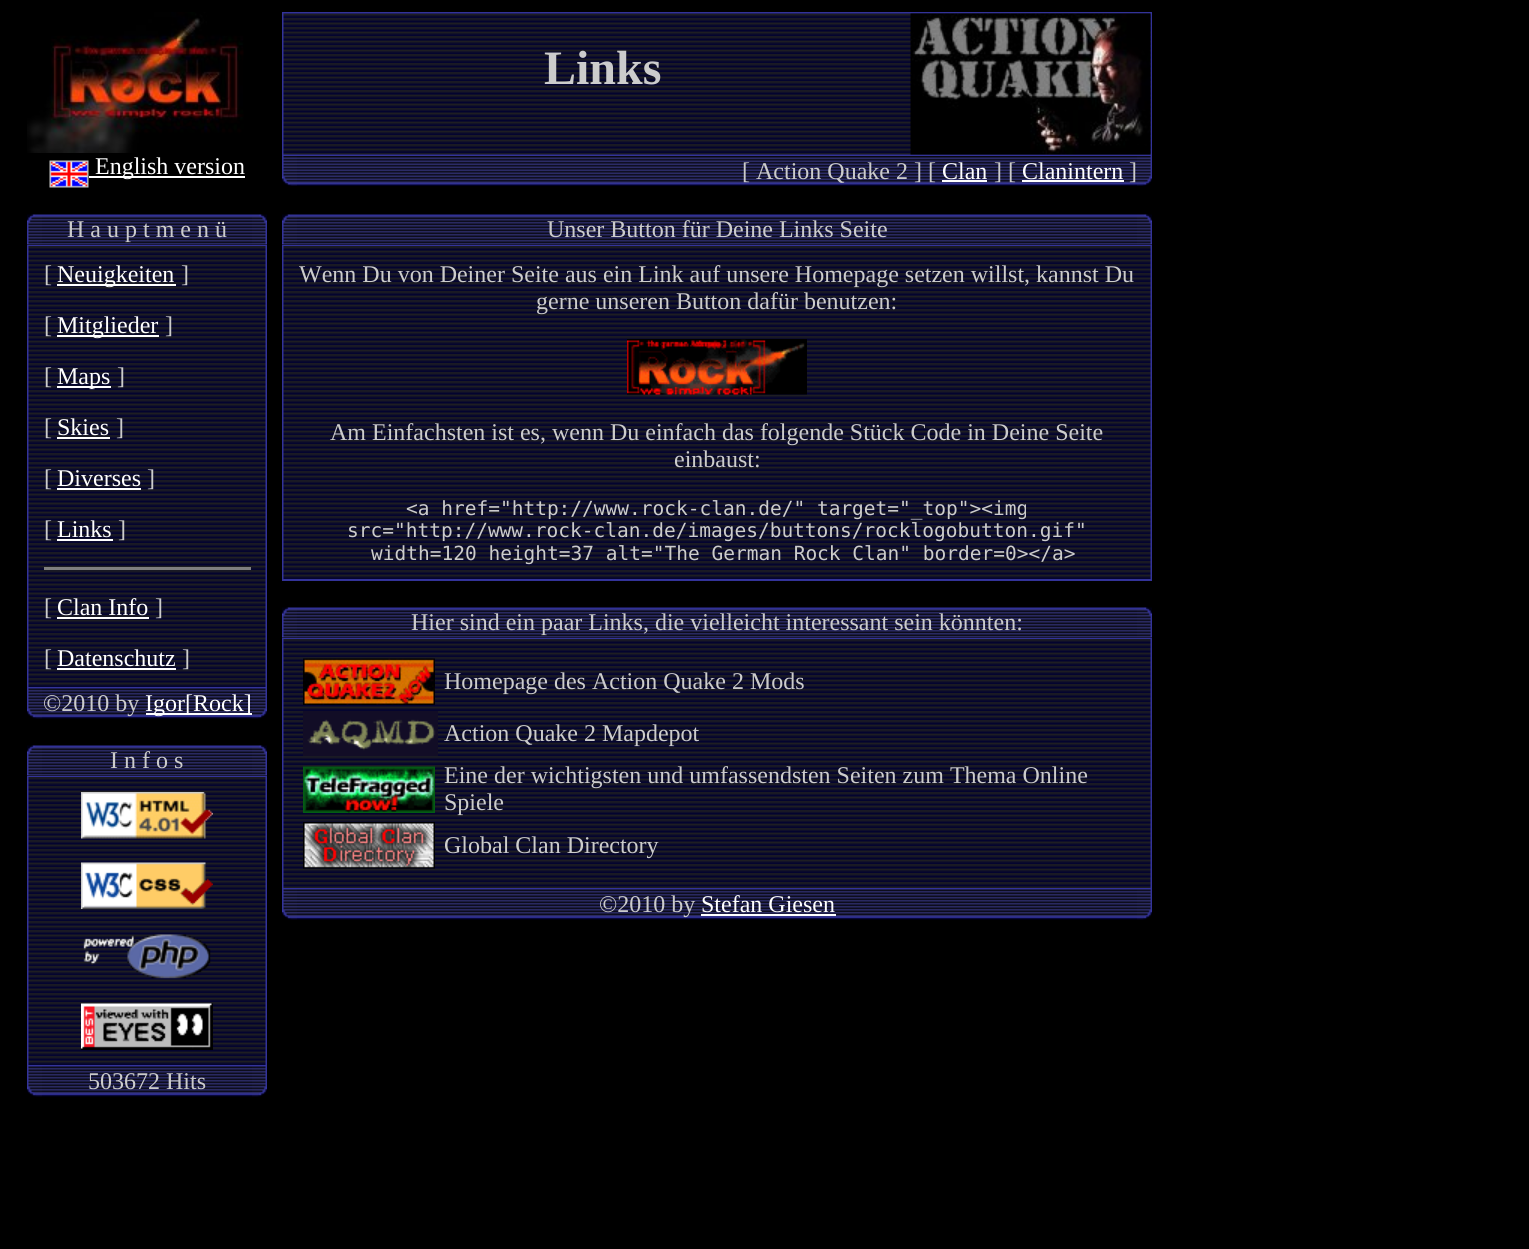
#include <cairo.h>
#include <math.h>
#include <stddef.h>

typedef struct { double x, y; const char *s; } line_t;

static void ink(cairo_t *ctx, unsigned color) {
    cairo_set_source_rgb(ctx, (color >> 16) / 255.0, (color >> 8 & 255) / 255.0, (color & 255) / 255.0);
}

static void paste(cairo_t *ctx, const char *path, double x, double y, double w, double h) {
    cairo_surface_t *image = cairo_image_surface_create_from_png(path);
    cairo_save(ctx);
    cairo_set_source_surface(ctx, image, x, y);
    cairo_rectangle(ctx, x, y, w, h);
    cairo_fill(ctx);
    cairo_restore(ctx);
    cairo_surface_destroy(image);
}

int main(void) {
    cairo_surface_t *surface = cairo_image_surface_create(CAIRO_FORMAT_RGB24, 1529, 1249);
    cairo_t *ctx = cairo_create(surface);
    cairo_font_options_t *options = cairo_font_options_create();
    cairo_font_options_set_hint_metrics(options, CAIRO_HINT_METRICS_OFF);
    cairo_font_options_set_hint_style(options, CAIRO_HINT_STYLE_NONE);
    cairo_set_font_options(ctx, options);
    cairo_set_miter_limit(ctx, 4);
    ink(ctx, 0x000000);
    cairo_paint(ctx);
    paste(ctx, "media/1.png", 27, 12, 217, 141);
    paste(ctx, "media/2.png", 49, 160, 40, 28);
    ink(ctx, 0xFFFFFF);
    cairo_rectangle(ctx, 89, 176, 156, 2);
    cairo_fill(ctx);
    cairo_select_font_face(ctx, "Liberation Serif", CAIRO_FONT_SLANT_NORMAL, CAIRO_FONT_WEIGHT_NORMAL);
    cairo_set_font_size(ctx, 24);
    cairo_move_to(ctx, 95, 174);
    cairo_show_text(ctx, "English version");
    ink(ctx, 0x333399);
    cairo_rectangle(ctx, 282, 12, 870, 144);
    cairo_fill(ctx);
    paste(ctx, "media/3.png", 283, 13, 868, 142);
    cairo_select_font_face(ctx, "Liberation Serif", CAIRO_FONT_SLANT_NORMAL, CAIRO_FONT_WEIGHT_BOLD);
    cairo_set_font_size(ctx, 48);
    ink(ctx, 0xCCCCCC);
    cairo_move_to(ctx, 544, 84);
    cairo_show_text(ctx, "Links");
    paste(ctx, "media/4.png", 910, 13, 241, 142);
    paste(ctx, "media/5.png", 282, 156, 15, 30);
    paste(ctx, "media/6.png", 297, 156, 840, 30);
    cairo_select_font_face(ctx, "Liberation Serif", CAIRO_FONT_SLANT_NORMAL, CAIRO_FONT_WEIGHT_NORMAL);
    cairo_set_font_size(ctx, 24);
    cairo_move_to(ctx, 742, 179);
    cairo_show_text(ctx, "[ Action Quake 2 ] [");
    ink(ctx, 0xFFFFFF);
    cairo_move_to(ctx, 942, 179);
    cairo_show_text(ctx, "Clan");
    cairo_rectangle(ctx, 942, 180, 45, 2);
    cairo_fill(ctx);
    ink(ctx, 0xCCCCCC);
    cairo_move_to(ctx, 994, 179);
    cairo_show_text(ctx, "] [");
    ink(ctx, 0xFFFFFF);
    cairo_move_to(ctx, 1022, 179);
    cairo_show_text(ctx, "Clanintern");
    cairo_rectangle(ctx, 1022, 180, 102, 2);
    cairo_fill(ctx);
    ink(ctx, 0xCCCCCC);
    cairo_move_to(ctx, 1129, 179);
    cairo_show_text(ctx, "]");
    paste(ctx, "media/7.png", 1137, 156, 15, 30);
    paste(ctx, "media/8.png", 27, 214, 15, 31);
    paste(ctx, "media/9.png", 42, 214, 210, 31);
    cairo_move_to(ctx, 67, 237);
    cairo_show_text(ctx, "H a u p t m e n ü");
    paste(ctx, "media/10.png", 252, 214, 15, 31);
    ink(ctx, 0x333399);
    cairo_rectangle(ctx, 27, 245, 240, 444);
    cairo_fill(ctx);
    paste(ctx, "media/11.png", 28, 246, 238, 441);
    ink(ctx, 0xCCCCCC);
    cairo_move_to(ctx, 44, 282);
    cairo_show_text(ctx, "[");
    ink(ctx, 0xFFFFFF);
    cairo_rectangle(ctx, 57, 284, 119, 2);
    cairo_fill(ctx);
    cairo_move_to(ctx, 57, 282);
    cairo_show_text(ctx, "Neuigkeiten");
    ink(ctx, 0xCCCCCC);
    cairo_move_to(ctx, 181, 282);
    cairo_show_text(ctx, "]");
    cairo_move_to(ctx, 44, 333);
    cairo_show_text(ctx, "[");
    ink(ctx, 0xFFFFFF);
    cairo_rectangle(ctx, 57, 335, 102, 2);
    cairo_fill(ctx);
    cairo_move_to(ctx, 57, 333);
    cairo_show_text(ctx, "Mitglieder");
    ink(ctx, 0xCCCCCC);
    cairo_move_to(ctx, 165, 333);
    cairo_show_text(ctx, "]");
    cairo_move_to(ctx, 44, 384);
    cairo_show_text(ctx, "[");
    ink(ctx, 0xFFFFFF);
    cairo_rectangle(ctx, 57, 386, 54, 2);
    cairo_fill(ctx);
    cairo_move_to(ctx, 57, 384);
    cairo_show_text(ctx, "Maps");
    ink(ctx, 0xCCCCCC);
    cairo_move_to(ctx, 117, 384);
    cairo_show_text(ctx, "]");
    cairo_move_to(ctx, 44, 435);
    cairo_show_text(ctx, "[");
    ink(ctx, 0xFFFFFF);
    cairo_move_to(ctx, 57, 435);
    cairo_show_text(ctx, "Skies");
    cairo_rectangle(ctx, 57, 437, 53, 2);
    cairo_fill(ctx);
    ink(ctx, 0xCCCCCC);
    cairo_move_to(ctx, 116, 435);
    cairo_show_text(ctx, "]");
    cairo_move_to(ctx, 44, 486);
    cairo_show_text(ctx, "[");
    ink(ctx, 0xFFFFFF);
    cairo_move_to(ctx, 57, 486);
    cairo_show_text(ctx, "Diverses");
    cairo_rectangle(ctx, 57, 488, 84, 2);
    cairo_fill(ctx);
    ink(ctx, 0xCCCCCC);
    cairo_move_to(ctx, 147, 486);
    cairo_show_text(ctx, "]");
    cairo_move_to(ctx, 44, 537);
    cairo_show_text(ctx, "[");
    ink(ctx, 0xFFFFFF);
    cairo_move_to(ctx, 57, 537);
    cairo_show_text(ctx, "Links");
    cairo_rectangle(ctx, 57, 539, 56, 2);
    cairo_fill(ctx);
    ink(ctx, 0xCCCCCC);
    cairo_move_to(ctx, 118, 537);
    cairo_show_text(ctx, "]");
    ink(ctx, 0x808080);
    cairo_rectangle(ctx, 44, 567, 207, 3);
    cairo_fill(ctx);
    ink(ctx, 0xCCCCCC);
    cairo_move_to(ctx, 44, 615);
    cairo_show_text(ctx, "[");
    ink(ctx, 0xFFFFFF);
    cairo_move_to(ctx, 57, 615);
    cairo_show_text(ctx, "Clan Info");
    cairo_rectangle(ctx, 57, 617, 92, 2);
    cairo_fill(ctx);
    ink(ctx, 0xCCCCCC);
    cairo_move_to(ctx, 155, 615);
    cairo_show_text(ctx, "]");
    cairo_move_to(ctx, 44, 666);
    cairo_show_text(ctx, "[");
    ink(ctx, 0xFFFFFF);
    cairo_move_to(ctx, 57, 666);
    cairo_show_text(ctx, "Datenschutz");
    cairo_rectangle(ctx, 57, 668, 119, 2);
    cairo_fill(ctx);
    ink(ctx, 0xCCCCCC);
    cairo_move_to(ctx, 182, 666);
    cairo_show_text(ctx, "]");
    paste(ctx, "media/12.png", 27, 688, 15, 31);
    paste(ctx, "media/13.png", 42, 688, 210, 31);
    cairo_move_to(ctx, 43, 711);
    cairo_show_text(ctx, "©2010 by");
    ink(ctx, 0xFFFFFF);
    cairo_rectangle(ctx, 146, 713, 106, 2);
    cairo_fill(ctx);
    cairo_move_to(ctx, 145, 711);
    cairo_show_text(ctx, "Igor[Rock]");
    paste(ctx, "media/14.png", 252, 688, 15, 31);
    paste(ctx, "media/8.png", 27, 745, 15, 31);
    paste(ctx, "media/9.png", 42, 745, 210, 31);
    ink(ctx, 0xCCCCCC);
    cairo_move_to(ctx, 110, 768);
    cairo_show_text(ctx, "I n f o s");
    paste(ctx, "media/10.png", 252, 745, 15, 31);
    ink(ctx, 0x333399);
    cairo_rectangle(ctx, 27, 776, 240, 291);
    cairo_fill(ctx);
    paste(ctx, "media/15.png", 28, 777, 238, 288);
    paste(ctx, "media/16.png", 81, 792, 132, 47);
    paste(ctx, "media/17.png", 81, 862, 132, 47);
    paste(ctx, "media/18.png", 83, 934, 128, 45);
    paste(ctx, "media/19.png", 81, 1003, 132, 47);
    paste(ctx, "media/12.png", 27, 1066, 15, 31);
    paste(ctx, "media/13.png", 42, 1066, 210, 31);
    ink(ctx, 0xCCCCCC);
    cairo_move_to(ctx, 88, 1089);
    cairo_show_text(ctx, "503672 Hits");
    paste(ctx, "media/14.png", 252, 1066, 15, 31);
    paste(ctx, "media/20.png", 282, 214, 15, 31);
    paste(ctx, "media/21.png", 297, 214, 840, 31);
    cairo_move_to(ctx, 547, 237);
    cairo_show_text(ctx, "Unser Button für Deine Links Seite");
    paste(ctx, "media/22.png", 1137, 214, 15, 31);
    ink(ctx, 0x333399);
    cairo_rectangle(ctx, 282, 245, 870, 336);
    cairo_fill(ctx);
    paste(ctx, "media/23.png", 283, 246, 868, 333);
    ink(ctx, 0xCCCCCC);
    cairo_move_to(ctx, 299, 282);
    cairo_show_text(ctx, "Wenn Du von Deiner Seite aus ein Link auf unsere Homepage setzen willst, kannst Du");
    cairo_move_to(ctx, 536, 309);
    cairo_show_text(ctx, "gerne unseren Button dafür benutzen:");
    paste(ctx, "media/24.png", 627, 339, 180, 56);
    cairo_move_to(ctx, 330, 440);
    cairo_show_text(ctx, "Am Einfachsten ist es, wenn Du einfach das folgende Stück Code in Deine Seite");
    cairo_move_to(ctx, 674, 467);
    cairo_show_text(ctx, "einbaust:");
    cairo_select_font_face(ctx, "DejaVu Sans Mono", CAIRO_FONT_SLANT_NORMAL, CAIRO_FONT_WEIGHT_NORMAL);
    cairo_set_font_size(ctx, 19.5);
    {
        static const line_t items[] = {
            {406, 515, "<a href=\"http://www.rock-clan.de/\" target=\"_top\"><img"},
            {347, 537, "src=\"http://www.rock-clan.de/images/buttons/rocklogobutton.gif\""},
            {371, 560, "width=120 height=37 alt=\"The German Rock Clan\" border=0></a>"},
        };
        for (size_t i = 0; i < sizeof items / sizeof *items; i++) {
            cairo_move_to(ctx, items[i].x, items[i].y);
            cairo_show_text(ctx, items[i].s);
        }
    }
    paste(ctx, "media/20.png", 282, 607, 15, 31);
    paste(ctx, "media/21.png", 297, 607, 840, 31);
    cairo_select_font_face(ctx, "Liberation Serif", CAIRO_FONT_SLANT_NORMAL, CAIRO_FONT_WEIGHT_NORMAL);
    cairo_set_font_size(ctx, 24);
    cairo_move_to(ctx, 411, 630);
    cairo_show_text(ctx, "Hier sind ein paar Links, die vielleicht interessant sein könnten:");
    paste(ctx, "media/22.png", 1137, 607, 15, 31);
    ink(ctx, 0x333399);
    cairo_rectangle(ctx, 282, 638, 870, 252);
    cairo_fill(ctx);
    paste(ctx, "media/25.png", 283, 639, 868, 249);
    paste(ctx, "media/26.png", 303, 658, 132, 47);
    ink(ctx, 0xCCCCCC);
    cairo_move_to(ctx, 444, 689);
    cairo_show_text(ctx, "Homepage des Action Quake 2 Mods");
    paste(ctx, "media/27.png", 303, 711, 135, 45);
    cairo_move_to(ctx, 444, 741);
    cairo_show_text(ctx, "Action Quake 2 Mapdepot");
    paste(ctx, "media/28.png", 303, 766, 132, 47);
    cairo_move_to(ctx, 444, 783);
    cairo_show_text(ctx, "Eine der wichtigsten und umfassendsten Seiten zum Thema Online");
    cairo_move_to(ctx, 444, 810);
    cairo_show_text(ctx, "Spiele");
    paste(ctx, "media/29.png", 303, 822, 132, 47);
    cairo_move_to(ctx, 444, 853);
    cairo_show_text(ctx, "Global Clan Directory");
    paste(ctx, "media/30.png", 282, 889, 15, 31);
    paste(ctx, "media/31.png", 297, 889, 840, 31);
    cairo_move_to(ctx, 599, 912);
    cairo_show_text(ctx, "©2010 by");
    ink(ctx, 0xFFFFFF);
    cairo_move_to(ctx, 701, 912);
    cairo_show_text(ctx, "Stefan Giesen");
    cairo_rectangle(ctx, 701, 914, 135, 2);
    cairo_fill(ctx);
    paste(ctx, "media/32.png", 1137, 889, 15, 31);
    cairo_surface_write_to_png(surface, "image.png");
    cairo_font_options_destroy(options);
    cairo_destroy(ctx);
    cairo_surface_destroy(surface);
    return 0;
}
